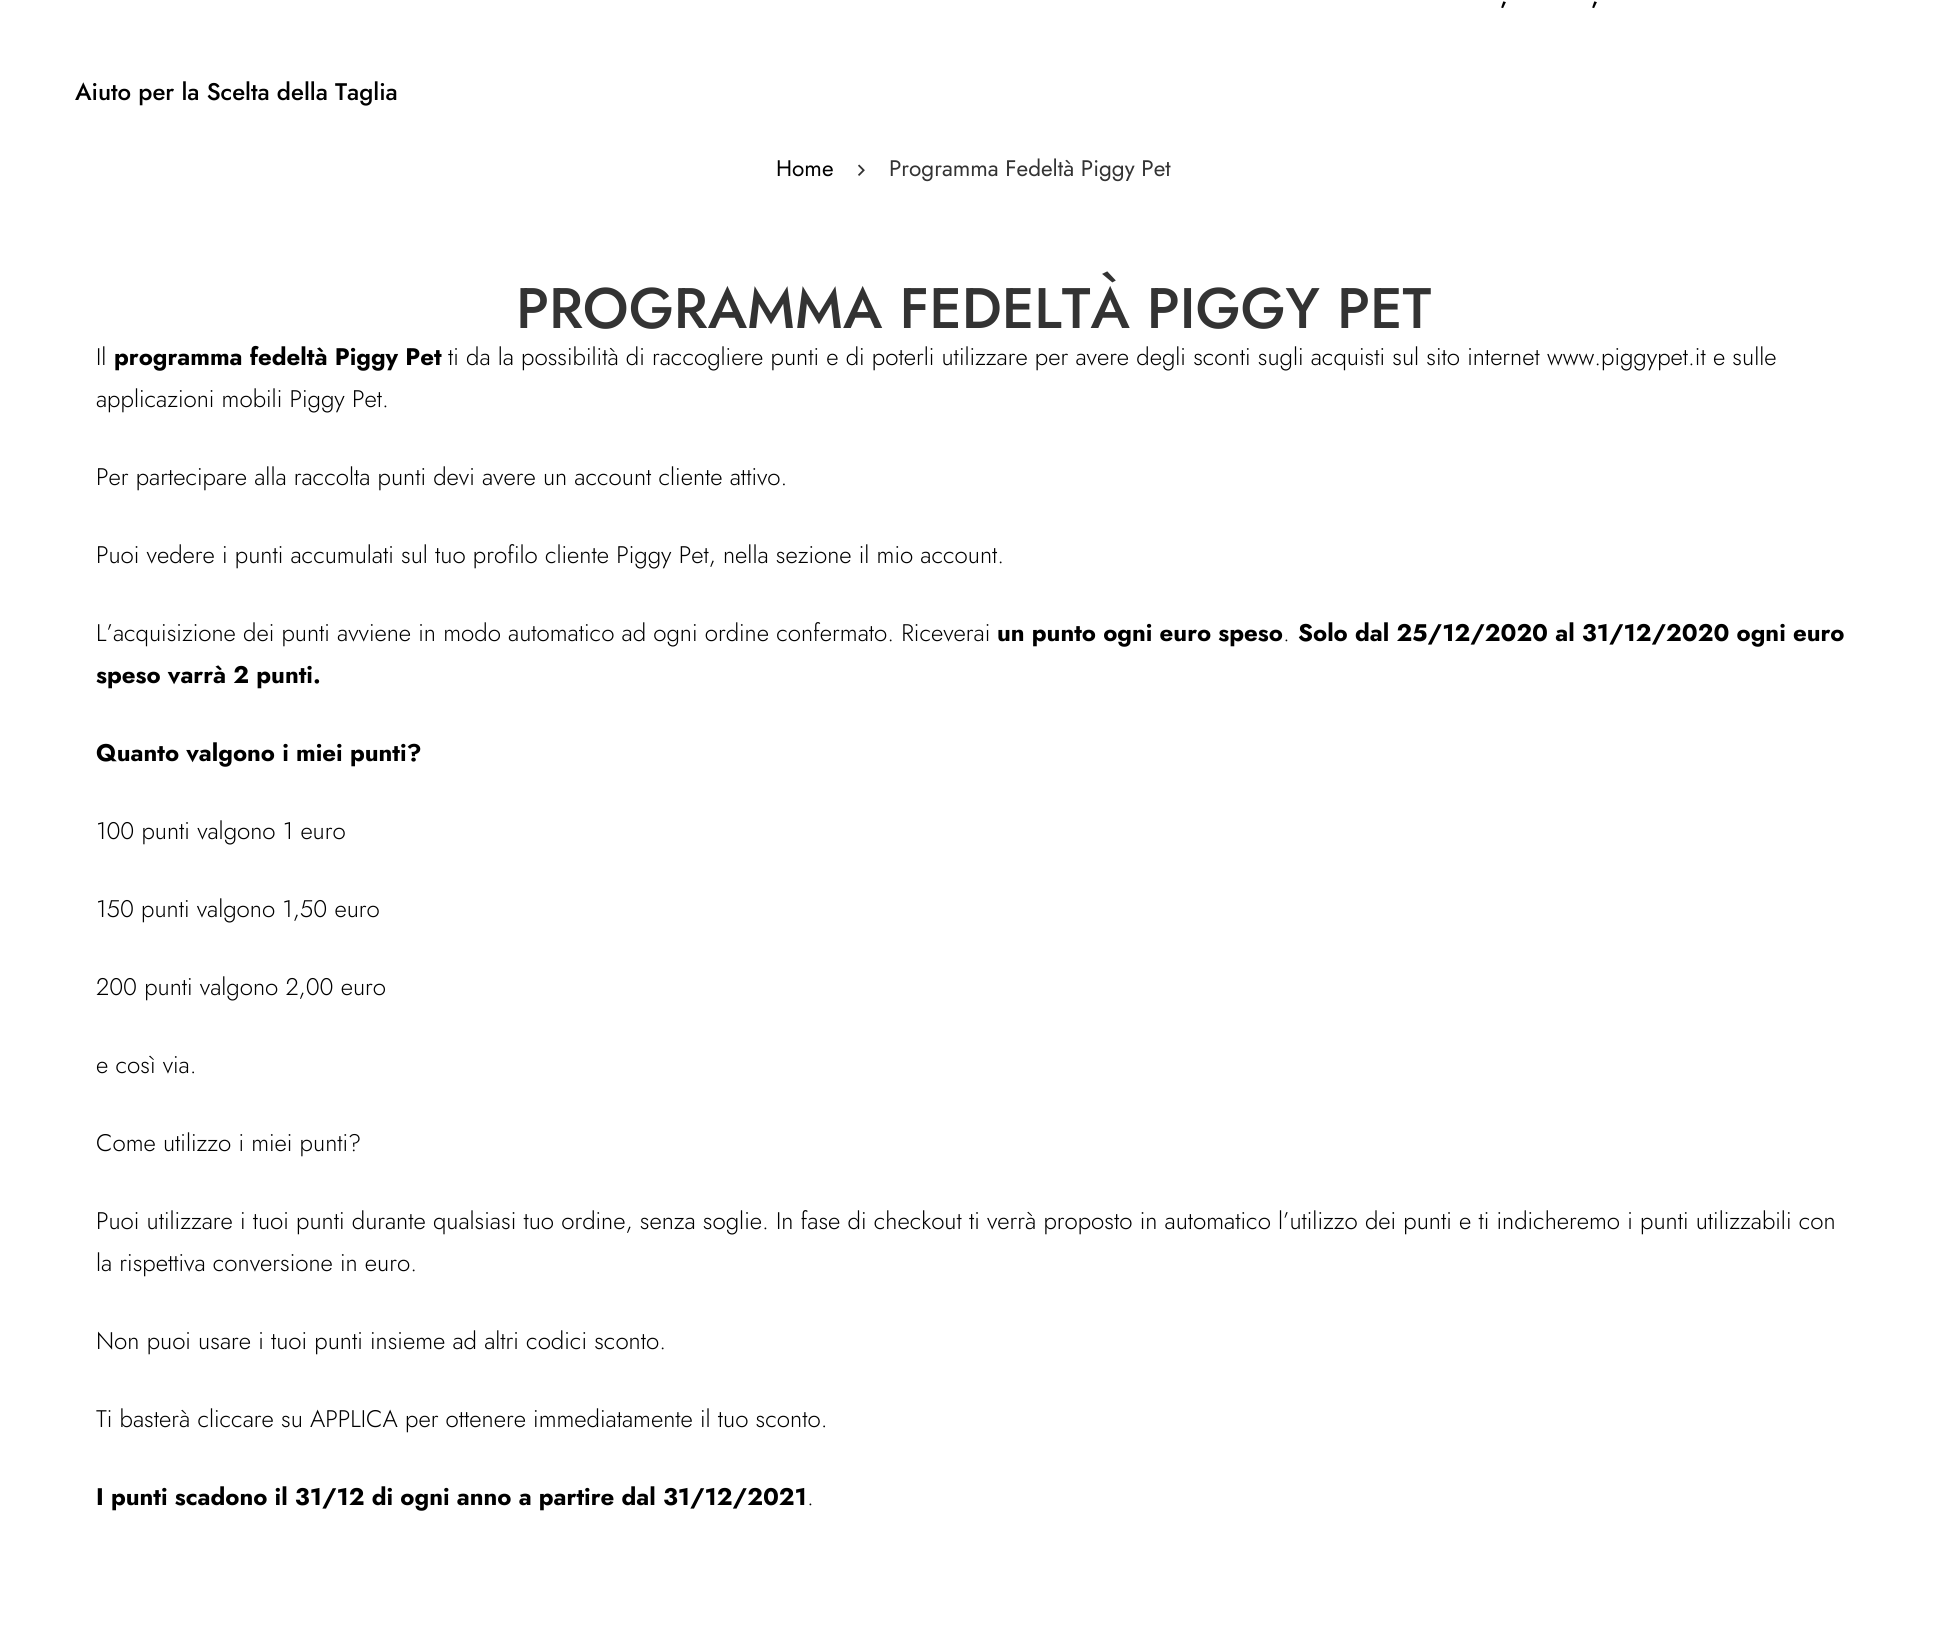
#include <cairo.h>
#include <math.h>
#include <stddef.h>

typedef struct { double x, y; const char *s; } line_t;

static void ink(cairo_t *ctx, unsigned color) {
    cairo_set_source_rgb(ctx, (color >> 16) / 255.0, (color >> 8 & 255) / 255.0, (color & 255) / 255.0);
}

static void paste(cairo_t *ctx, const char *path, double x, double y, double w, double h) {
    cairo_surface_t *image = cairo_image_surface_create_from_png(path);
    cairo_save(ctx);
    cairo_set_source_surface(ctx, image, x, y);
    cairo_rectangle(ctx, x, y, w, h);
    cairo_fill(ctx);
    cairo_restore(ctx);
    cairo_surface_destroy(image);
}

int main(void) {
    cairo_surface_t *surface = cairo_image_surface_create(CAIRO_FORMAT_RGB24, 1946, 1636);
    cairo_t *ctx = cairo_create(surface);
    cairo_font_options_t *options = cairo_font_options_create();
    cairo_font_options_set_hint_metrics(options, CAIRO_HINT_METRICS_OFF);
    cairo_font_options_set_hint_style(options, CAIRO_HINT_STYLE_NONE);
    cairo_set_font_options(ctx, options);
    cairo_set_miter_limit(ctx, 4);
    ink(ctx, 0xFFFFFF);
    cairo_paint(ctx);
    cairo_select_font_face(ctx, "Jost Medium", CAIRO_FONT_SLANT_NORMAL, CAIRO_FONT_WEIGHT_NORMAL);
    cairo_set_font_size(ctx, 24);
    ink(ctx, 0x000000);
    {
        static const line_t items[] = {
            {1500, 4, ","},
            {1591, 4, ","},
            {75, 100, "Aiuto per la Scelta della Taglia"},
        };
        for (size_t i = 0; i < sizeof items / sizeof *items; i++) {
            cairo_move_to(ctx, items[i].x, items[i].y);
            cairo_show_text(ctx, items[i].s);
        }
    }
    cairo_select_font_face(ctx, "Jost", CAIRO_FONT_SLANT_NORMAL, CAIRO_FONT_WEIGHT_NORMAL);
    cairo_set_font_size(ctx, 22.5);
    cairo_move_to(ctx, 776, 176);
    cairo_show_text(ctx, "Home");
    paste(ctx, "media/1.png", 858, 164, 7, 12);
    ink(ctx, 0x333333);
    cairo_move_to(ctx, 889, 176);
    cairo_show_text(ctx, "Programma Fedeltà Piggy Pet");
    cairo_select_font_face(ctx, "Jost Medium", CAIRO_FONT_SLANT_NORMAL, CAIRO_FONT_WEIGHT_NORMAL);
    cairo_set_font_size(ctx, 57);
    cairo_move_to(ctx, 516, 328);
    cairo_show_text(ctx, "PROGRAMMA FEDELTÀ PIGGY PET");
    cairo_select_font_face(ctx, "Jost Light", CAIRO_FONT_SLANT_NORMAL, CAIRO_FONT_WEIGHT_NORMAL);
    cairo_set_font_size(ctx, 24);
    ink(ctx, 0x000000);
    cairo_move_to(ctx, 96, 365);
    cairo_show_text(ctx, "Il");
    cairo_select_font_face(ctx, "Jost", CAIRO_FONT_SLANT_NORMAL, CAIRO_FONT_WEIGHT_BOLD);
    cairo_move_to(ctx, 114, 365);
    cairo_show_text(ctx, "programma fedeltà Piggy Pet");
    cairo_select_font_face(ctx, "Jost Light", CAIRO_FONT_SLANT_NORMAL, CAIRO_FONT_WEIGHT_NORMAL);
    {
        static const line_t items[] = {
            {448, 365, "ti da la possibilità di raccogliere punti e di poterli utilizzare per avere degli sconti sugli acquisti sul sito internet www.piggypet.it e sulle"},
            {96, 407, "applicazioni mobili Piggy Pet."},
            {96, 485, "Per partecipare alla raccolta punti devi avere un account cliente attivo."},
            {96, 563, "Puoi vedere i punti accumulati sul tuo profilo cliente Piggy Pet, nella sezione il mio account."},
            {96, 641, "L’acquisizione dei punti avviene in modo automatico ad ogni ordine confermato. Riceverai"},
        };
        for (size_t i = 0; i < sizeof items / sizeof *items; i++) {
            cairo_move_to(ctx, items[i].x, items[i].y);
            cairo_show_text(ctx, items[i].s);
        }
    }
    cairo_select_font_face(ctx, "Jost", CAIRO_FONT_SLANT_NORMAL, CAIRO_FONT_WEIGHT_BOLD);
    cairo_move_to(ctx, 997, 641);
    cairo_show_text(ctx, "un punto ogni euro speso");
    cairo_select_font_face(ctx, "Jost Light", CAIRO_FONT_SLANT_NORMAL, CAIRO_FONT_WEIGHT_NORMAL);
    cairo_move_to(ctx, 1283, 641);
    cairo_show_text(ctx, ".");
    cairo_select_font_face(ctx, "Jost", CAIRO_FONT_SLANT_NORMAL, CAIRO_FONT_WEIGHT_BOLD);
    {
        static const line_t items[] = {
            {1298, 641, "Solo dal 25/12/2020 al 31/12/2020 ogni euro"},
            {96, 683, "speso varrà 2 punti."},
            {96, 761, "Quanto valgono i miei punti?"},
        };
        for (size_t i = 0; i < sizeof items / sizeof *items; i++) {
            cairo_move_to(ctx, items[i].x, items[i].y);
            cairo_show_text(ctx, items[i].s);
        }
    }
    cairo_select_font_face(ctx, "Jost Light", CAIRO_FONT_SLANT_NORMAL, CAIRO_FONT_WEIGHT_NORMAL);
    {
        static const line_t items[] = {
            {96, 839, "100 punti valgono 1 euro"},
            {96, 917, "150 punti valgono 1,50 euro"},
            {96, 995, "200 punti valgono 2,00 euro"},
            {96, 1073, "e così via."},
            {96, 1151, "Come utilizzo i miei punti?"},
            {96, 1229, "Puoi utilizzare i tuoi punti durante qualsiasi tuo ordine, senza soglie. In fase di checkout ti verrà proposto in automatico l’utilizzo dei punti e ti indicheremo i punti utilizzabili con"},
            {96, 1271, "la rispettiva conversione in euro."},
            {96, 1349, "Non puoi usare i tuoi punti insieme ad altri codici sconto."},
            {96, 1427, "Ti basterà cliccare su APPLICA per ottenere immediatamente il tuo sconto."},
        };
        for (size_t i = 0; i < sizeof items / sizeof *items; i++) {
            cairo_move_to(ctx, items[i].x, items[i].y);
            cairo_show_text(ctx, items[i].s);
        }
    }
    cairo_select_font_face(ctx, "Jost", CAIRO_FONT_SLANT_NORMAL, CAIRO_FONT_WEIGHT_BOLD);
    cairo_move_to(ctx, 96, 1505);
    cairo_show_text(ctx, "I punti scadono il 31/12 di ogni anno a partire dal 31/12/2021");
    cairo_select_font_face(ctx, "Jost Light", CAIRO_FONT_SLANT_NORMAL, CAIRO_FONT_WEIGHT_NORMAL);
    cairo_move_to(ctx, 807, 1505);
    cairo_show_text(ctx, ".");
    cairo_surface_write_to_png(surface, "image.png");
    cairo_font_options_destroy(options);
    cairo_destroy(ctx);
    cairo_surface_destroy(surface);
    return 0;
}
